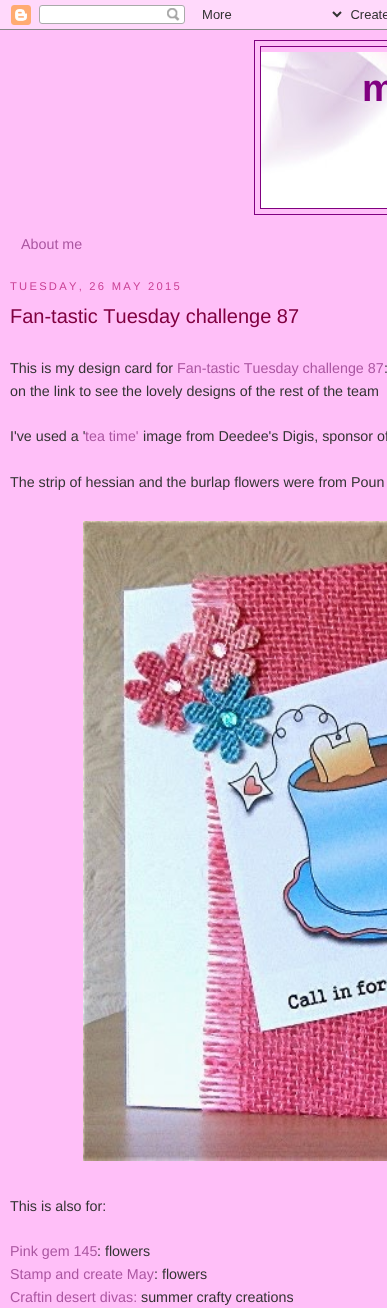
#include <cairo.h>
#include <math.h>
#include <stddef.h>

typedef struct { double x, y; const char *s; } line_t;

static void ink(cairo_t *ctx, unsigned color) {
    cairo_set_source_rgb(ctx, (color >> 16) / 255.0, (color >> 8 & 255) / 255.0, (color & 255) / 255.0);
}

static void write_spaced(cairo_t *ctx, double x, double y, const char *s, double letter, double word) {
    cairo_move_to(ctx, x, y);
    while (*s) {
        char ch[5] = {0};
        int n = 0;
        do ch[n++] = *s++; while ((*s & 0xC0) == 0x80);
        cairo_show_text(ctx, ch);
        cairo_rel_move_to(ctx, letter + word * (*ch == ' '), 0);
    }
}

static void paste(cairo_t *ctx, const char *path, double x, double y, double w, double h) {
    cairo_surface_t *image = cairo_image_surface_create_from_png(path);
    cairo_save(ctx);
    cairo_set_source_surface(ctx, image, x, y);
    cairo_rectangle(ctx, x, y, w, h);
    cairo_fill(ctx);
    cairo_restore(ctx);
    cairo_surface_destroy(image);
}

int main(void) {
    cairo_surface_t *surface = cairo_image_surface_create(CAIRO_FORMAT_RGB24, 387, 1308);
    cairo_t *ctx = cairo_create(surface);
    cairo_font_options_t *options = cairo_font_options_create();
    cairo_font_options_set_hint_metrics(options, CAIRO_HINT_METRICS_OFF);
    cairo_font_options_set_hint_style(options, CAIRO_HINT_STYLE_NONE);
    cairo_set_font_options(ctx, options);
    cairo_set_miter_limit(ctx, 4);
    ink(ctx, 0xFFBFF8);
    cairo_paint(ctx);
    paste(ctx, "media/1.png", 0, 0, 387, 30);
    cairo_rectangle(ctx, 254.5, 40.5, 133, 174);
    ink(ctx, 0x800080);
    cairo_set_line_width(ctx, 1);
    cairo_stroke(ctx);
    cairo_rectangle(ctx, 260.5, 46.5, 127, 162);
    cairo_stroke(ctx);
    paste(ctx, "media/2.png", 261, 52, 126, 156);
    cairo_select_font_face(ctx, "Liberation Sans", CAIRO_FONT_SLANT_NORMAL, CAIRO_FONT_WEIGHT_BOLD);
    cairo_set_font_size(ctx, 38);
    write_spaced(ctx, 362, 101, "m", 8, 0);
    cairo_select_font_face(ctx, "Liberation Sans", CAIRO_FONT_SLANT_NORMAL, CAIRO_FONT_WEIGHT_NORMAL);
    cairo_set_font_size(ctx, 14.3);
    ink(ctx, 0xAA55A0);
    cairo_move_to(ctx, 21, 249);
    cairo_show_text(ctx, "About me");
    cairo_set_font_size(ctx, 11.2);
    ink(ctx, 0xC94093);
    write_spaced(ctx, 10, 290, "TUESDAY, 26 MAY 2015", 2.25, 0);
    cairo_set_font_size(ctx, 20);
    ink(ctx, 0x800040);
    cairo_move_to(ctx, 10, 323);
    cairo_show_text(ctx, "Fan-tastic Tuesday challenge 87");
    cairo_set_font_size(ctx, 14.3);
    ink(ctx, 0x333333);
    cairo_move_to(ctx, 10, 373);
    cairo_show_text(ctx, "This is my design card for");
    ink(ctx, 0xAA55A0);
    cairo_move_to(ctx, 177, 373);
    cairo_show_text(ctx, "Fan-tastic Tuesday challenge 87");
    ink(ctx, 0x333333);
    {
        static const line_t items[] = {
            {384, 373, ":"},
            {10, 396, "on the link to see the lovely designs of the rest of the team"},
            {10, 441, "I've used a '"},
        };
        for (size_t i = 0; i < sizeof items / sizeof *items; i++) {
            cairo_move_to(ctx, items[i].x, items[i].y);
            cairo_show_text(ctx, items[i].s);
        }
    }
    ink(ctx, 0xAA55A0);
    cairo_move_to(ctx, 85, 441);
    cairo_show_text(ctx, "tea time'");
    ink(ctx, 0x333333);
    cairo_move_to(ctx, 143, 441);
    cairo_show_text(ctx, "image from Deedee's Digis, sponsor of");
    cairo_move_to(ctx, 10, 487);
    cairo_show_text(ctx, "The strip of hessian and the burlap flowers were from Poun");
    paste(ctx, "media/3.png", 83, 521, 304, 640);
    cairo_move_to(ctx, 10, 1211);
    cairo_show_text(ctx, "This is also for:");
    ink(ctx, 0xAA55A0);
    cairo_move_to(ctx, 10, 1256);
    cairo_show_text(ctx, "Pink gem 145");
    ink(ctx, 0x333333);
    cairo_move_to(ctx, 97, 1256);
    cairo_show_text(ctx, ": flowers");
    ink(ctx, 0xAA55A0);
    cairo_move_to(ctx, 10, 1279);
    cairo_show_text(ctx, "Stamp and create May");
    ink(ctx, 0x333333);
    cairo_move_to(ctx, 154, 1279);
    cairo_show_text(ctx, ": flowers");
    ink(ctx, 0xAA55A0);
    cairo_move_to(ctx, 10, 1302);
    cairo_show_text(ctx, "Craftin desert divas:");
    ink(ctx, 0x333333);
    cairo_move_to(ctx, 141, 1302);
    cairo_show_text(ctx, "summer crafty creations");
    cairo_surface_write_to_png(surface, "image.png");
    cairo_font_options_destroy(options);
    cairo_destroy(ctx);
    cairo_surface_destroy(surface);
    return 0;
}
